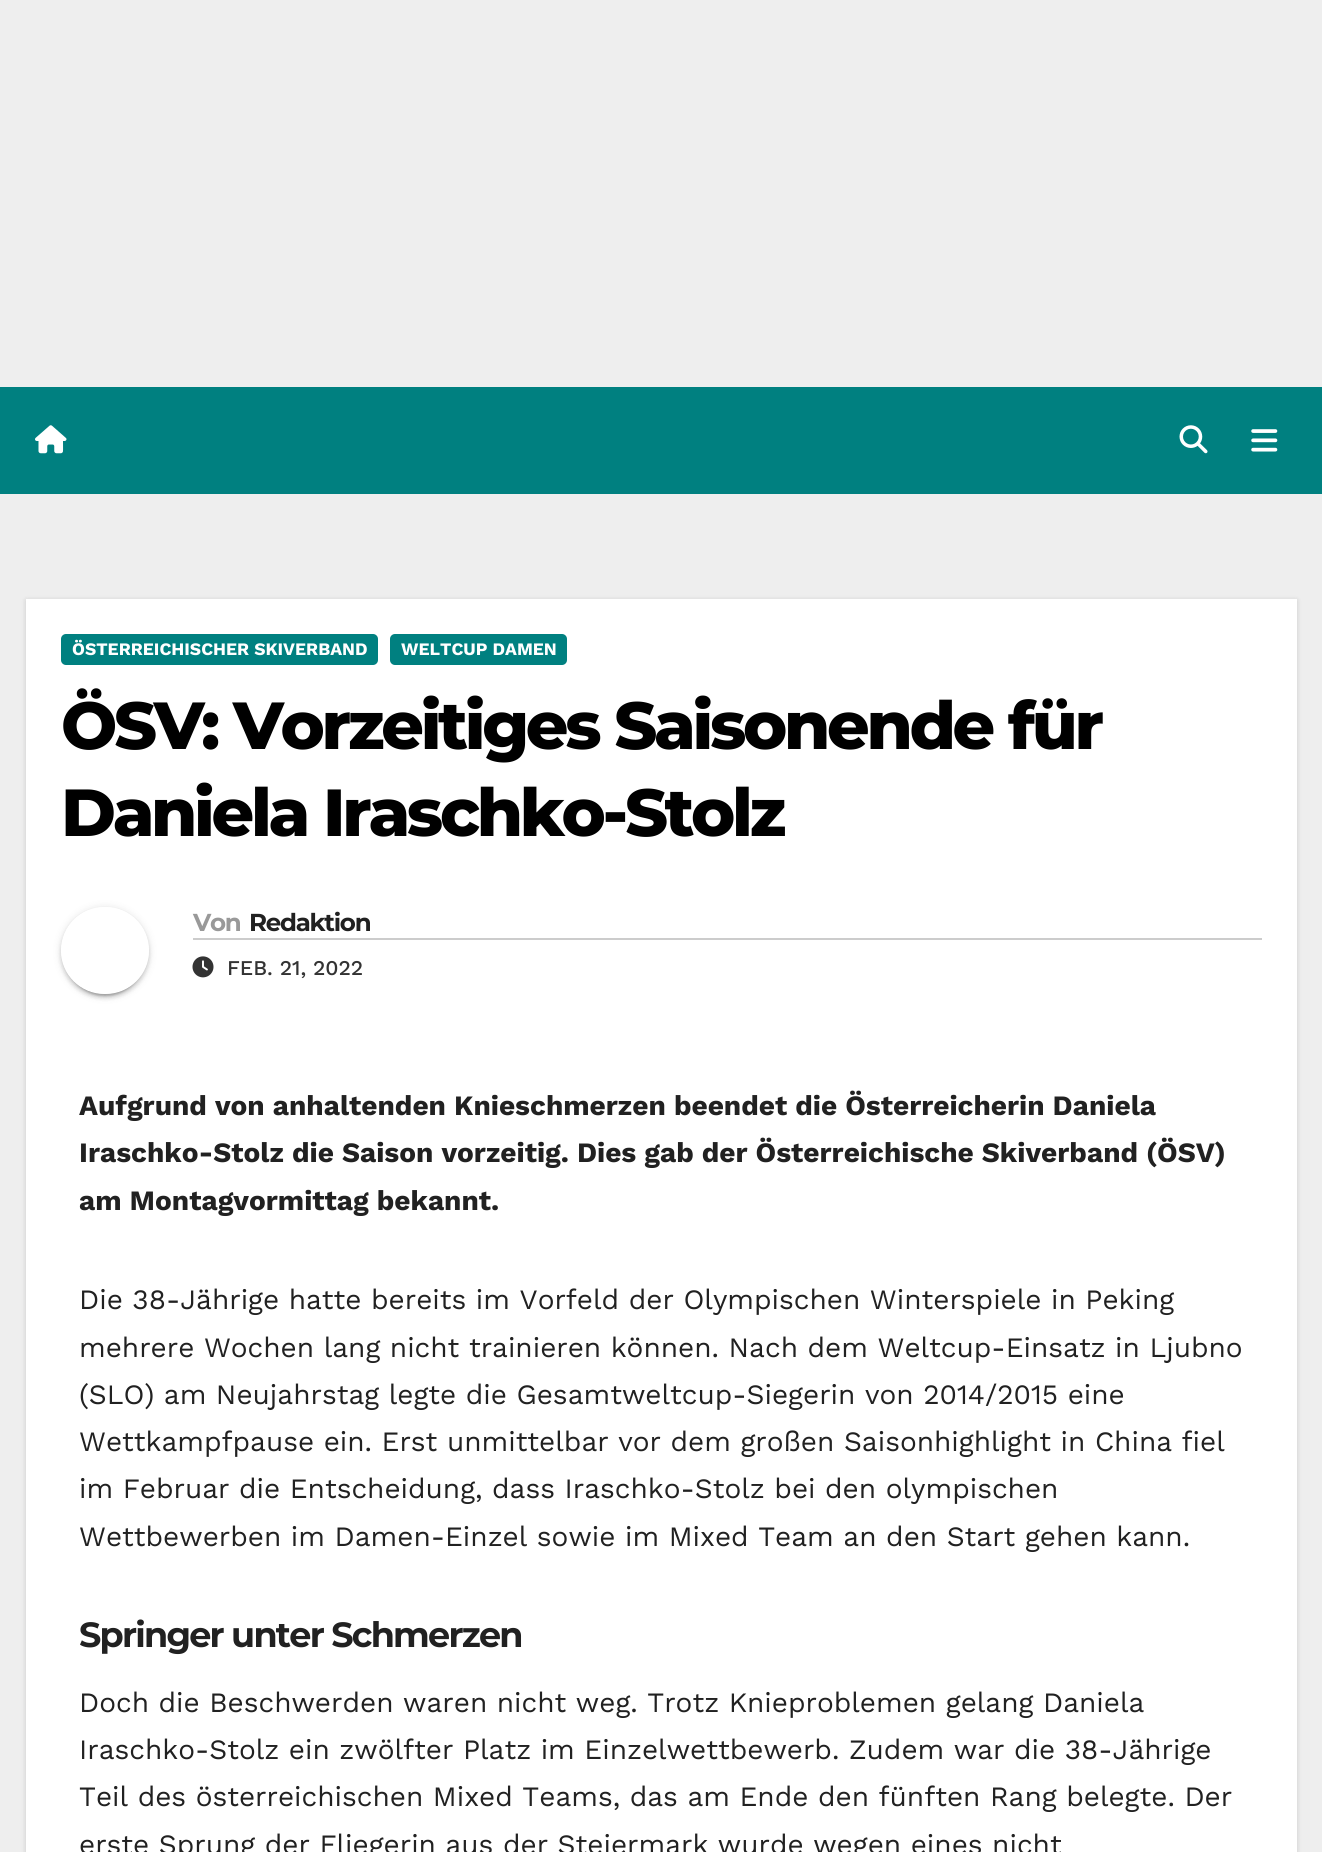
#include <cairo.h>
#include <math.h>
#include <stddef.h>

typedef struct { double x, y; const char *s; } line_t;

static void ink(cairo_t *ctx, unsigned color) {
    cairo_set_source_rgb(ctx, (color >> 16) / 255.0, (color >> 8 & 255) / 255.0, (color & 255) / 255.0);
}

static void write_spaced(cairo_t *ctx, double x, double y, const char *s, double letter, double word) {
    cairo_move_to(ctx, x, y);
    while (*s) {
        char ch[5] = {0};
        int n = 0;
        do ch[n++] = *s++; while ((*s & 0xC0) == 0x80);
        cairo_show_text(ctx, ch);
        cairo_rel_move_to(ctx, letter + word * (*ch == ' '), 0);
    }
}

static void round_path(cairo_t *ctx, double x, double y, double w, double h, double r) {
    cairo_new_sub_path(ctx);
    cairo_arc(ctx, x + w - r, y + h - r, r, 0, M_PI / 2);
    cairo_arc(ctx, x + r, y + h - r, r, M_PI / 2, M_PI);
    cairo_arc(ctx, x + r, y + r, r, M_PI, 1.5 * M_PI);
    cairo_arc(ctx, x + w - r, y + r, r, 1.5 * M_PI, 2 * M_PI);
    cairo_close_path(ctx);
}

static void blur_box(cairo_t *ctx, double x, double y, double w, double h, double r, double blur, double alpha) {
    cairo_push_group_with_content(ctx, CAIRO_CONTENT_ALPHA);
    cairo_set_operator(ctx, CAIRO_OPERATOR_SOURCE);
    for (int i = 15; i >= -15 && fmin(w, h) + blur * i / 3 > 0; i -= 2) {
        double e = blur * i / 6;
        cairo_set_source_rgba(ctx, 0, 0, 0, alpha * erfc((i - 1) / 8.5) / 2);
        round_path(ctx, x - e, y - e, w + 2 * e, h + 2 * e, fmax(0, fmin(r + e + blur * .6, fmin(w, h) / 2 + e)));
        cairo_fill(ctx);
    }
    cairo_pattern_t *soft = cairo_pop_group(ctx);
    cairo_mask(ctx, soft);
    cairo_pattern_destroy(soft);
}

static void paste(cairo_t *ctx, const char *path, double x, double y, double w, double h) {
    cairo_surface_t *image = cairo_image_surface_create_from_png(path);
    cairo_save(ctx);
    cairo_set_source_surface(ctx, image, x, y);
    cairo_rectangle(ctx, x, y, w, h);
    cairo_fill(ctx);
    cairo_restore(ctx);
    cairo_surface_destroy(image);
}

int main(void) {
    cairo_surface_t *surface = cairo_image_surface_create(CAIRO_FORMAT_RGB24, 1322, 1852);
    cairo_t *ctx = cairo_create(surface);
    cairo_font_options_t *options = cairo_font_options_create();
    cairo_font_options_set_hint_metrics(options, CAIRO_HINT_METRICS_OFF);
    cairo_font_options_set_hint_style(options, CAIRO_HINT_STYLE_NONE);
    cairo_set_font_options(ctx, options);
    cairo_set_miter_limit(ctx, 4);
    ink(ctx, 0xEEEEEE);
    cairo_paint(ctx);
    ink(ctx, 0x008080);
    cairo_rectangle(ctx, 0, 387, 1322, 107);
    cairo_fill(ctx);
    paste(ctx, "media/1.png", 35, 425, 32, 29);
    paste(ctx, "media/2.png", 1179, 425, 29, 29);
    paste(ctx, "media/3.png", 1251, 429, 27, 23);
    ink(ctx, 0x000000);
    blur_box(ctx, 26, 600, 1271, 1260, 0, 2.5, 0.15);
    ink(ctx, 0xFFFFFF);
    cairo_rectangle(ctx, 26, 599, 1271, 1253);
    cairo_fill(ctx);
    ink(ctx, 0x008080);
    round_path(ctx, 61, 634, 317, 31, 5);
    cairo_fill(ctx);
    cairo_select_font_face(ctx, "Work Sans", CAIRO_FONT_SLANT_NORMAL, CAIRO_FONT_WEIGHT_BOLD);
    cairo_set_font_size(ctx, 17.5);
    ink(ctx, 0xFFFFFF);
    cairo_move_to(ctx, 72, 655);
    cairo_show_text(ctx, "ÖSTERREICHISCHER SKIVERBAND");
    ink(ctx, 0x008080);
    round_path(ctx, 390, 634, 177, 31, 5);
    cairo_fill(ctx);
    ink(ctx, 0xFFFFFF);
    cairo_move_to(ctx, 401, 655);
    cairo_show_text(ctx, "WELTCUP DAMEN");
    cairo_select_font_face(ctx, "Montserrat ExtraBold", CAIRO_FONT_SLANT_NORMAL, CAIRO_FONT_WEIGHT_NORMAL);
    cairo_set_font_size(ctx, 66.5);
    ink(ctx, 0x000000);
    write_spaced(ctx, 61, 749, "ÖSV: Vorzeitiges Saisonende für", -3.3, 0);
    write_spaced(ctx, 61, 836, "Daniela Iraschko-Stolz", -3.3, 0);
    cairo_save(ctx);
    cairo_set_fill_rule(ctx, CAIRO_FILL_RULE_EVEN_ODD);
    cairo_new_path(ctx);
    cairo_move_to(ctx, 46, 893);
    cairo_line_to(ctx, 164, 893);
    cairo_line_to(ctx, 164, 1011);
    cairo_line_to(ctx, 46, 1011);
    cairo_close_path(ctx);
    cairo_move_to(ctx, 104.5, 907);
    cairo_line_to(ctx, 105.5, 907);
    cairo_curve_to(ctx, 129.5, 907, 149, 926.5, 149, 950.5);
    cairo_curve_to(ctx, 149, 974.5, 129.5, 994, 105.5, 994);
    cairo_line_to(ctx, 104.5, 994);
    cairo_curve_to(ctx, 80.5, 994, 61, 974.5, 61, 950.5);
    cairo_curve_to(ctx, 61, 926.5, 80.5, 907, 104.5, 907);
    cairo_close_path(ctx);
    cairo_clip(ctx);
    ink(ctx, 0x000000);
    blur_box(ctx, 61, 908, 88, 88, 44, 4.5, 0.12);
    cairo_restore(ctx);
    cairo_save(ctx);
    cairo_set_fill_rule(ctx, CAIRO_FILL_RULE_EVEN_ODD);
    cairo_new_path(ctx);
    cairo_move_to(ctx, 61, 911);
    cairo_line_to(ctx, 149, 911);
    cairo_line_to(ctx, 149, 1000);
    cairo_line_to(ctx, 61, 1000);
    cairo_close_path(ctx);
    cairo_move_to(ctx, 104.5, 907);
    cairo_line_to(ctx, 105.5, 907);
    cairo_curve_to(ctx, 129.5, 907, 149, 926.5, 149, 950.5);
    cairo_curve_to(ctx, 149, 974.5, 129.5, 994, 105.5, 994);
    cairo_line_to(ctx, 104.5, 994);
    cairo_curve_to(ctx, 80.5, 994, 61, 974.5, 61, 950.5);
    cairo_curve_to(ctx, 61, 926.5, 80.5, 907, 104.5, 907);
    cairo_close_path(ctx);
    cairo_clip(ctx);
    ink(ctx, 0x000000);
    blur_box(ctx, 65, 915, 80, 81, 40, 1, 0.2);
    cairo_restore(ctx);
    cairo_save(ctx);
    cairo_set_fill_rule(ctx, CAIRO_FILL_RULE_EVEN_ODD);
    cairo_new_path(ctx);
    cairo_move_to(ctx, 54, 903);
    cairo_line_to(ctx, 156, 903);
    cairo_line_to(ctx, 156, 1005);
    cairo_line_to(ctx, 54, 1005);
    cairo_close_path(ctx);
    cairo_move_to(ctx, 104.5, 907);
    cairo_line_to(ctx, 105.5, 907);
    cairo_curve_to(ctx, 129.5, 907, 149, 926.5, 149, 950.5);
    cairo_curve_to(ctx, 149, 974.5, 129.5, 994, 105.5, 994);
    cairo_line_to(ctx, 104.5, 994);
    cairo_curve_to(ctx, 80.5, 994, 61, 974.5, 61, 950.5);
    cairo_curve_to(ctx, 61, 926.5, 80.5, 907, 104.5, 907);
    cairo_close_path(ctx);
    cairo_clip(ctx);
    ink(ctx, 0x000000);
    blur_box(ctx, 61, 910, 88, 88, 44, 2, 0.14);
    cairo_restore(ctx);
    ink(ctx, 0xCCCCCC);
    cairo_rectangle(ctx, 193, 938, 1069, 2);
    cairo_fill(ctx);
    cairo_select_font_face(ctx, "Montserrat", CAIRO_FONT_SLANT_NORMAL, CAIRO_FONT_WEIGHT_BOLD);
    cairo_set_font_size(ctx, 24.5);
    ink(ctx, 0x999999);
    write_spaced(ctx, 193, 931, "Von", -1.25, 0);
    ink(ctx, 0x212121);
    write_spaced(ctx, 249, 931, "Redaktion", -1.25, 0);
    paste(ctx, "media/4.png", 192, 956, 22, 22);
    cairo_select_font_face(ctx, "Work Sans Medium", CAIRO_FONT_SLANT_NORMAL, CAIRO_FONT_WEIGHT_NORMAL);
    cairo_set_font_size(ctx, 21);
    ink(ctx, 0x333333);
    cairo_move_to(ctx, 227, 975);
    cairo_show_text(ctx, "FEB. 21, 2022");
    cairo_select_font_face(ctx, "Work Sans", CAIRO_FONT_SLANT_NORMAL, CAIRO_FONT_WEIGHT_BOLD);
    cairo_set_font_size(ctx, 28);
    ink(ctx, 0x212121);
    {
        static const line_t items[] = {
            {79, 1115, "Aufgrund von anhaltenden Knieschmerzen beendet die Österreicherin Daniela"},
            {79, 1162, "Iraschko-Stolz die Saison vorzeitig. Dies gab der Österreichische Skiverband (ÖSV)"},
            {79, 1210, "am Montagvormittag bekannt."},
        };
        for (size_t i = 0; i < sizeof items / sizeof *items; i++) {
            cairo_move_to(ctx, items[i].x, items[i].y);
            cairo_show_text(ctx, items[i].s);
        }
    }
    cairo_select_font_face(ctx, "Work Sans", CAIRO_FONT_SLANT_NORMAL, CAIRO_FONT_WEIGHT_NORMAL);
    {
        static const line_t items[] = {
            {79, 1309, "Die 38-Jährige hatte bereits im Vorfeld der Olympischen Winterspiele in Peking"},
            {79, 1357, "mehrere Wochen lang nicht trainieren können. Nach dem Weltcup-Einsatz in Ljubno"},
            {79, 1404, "(SLO) am Neujahrstag legte die Gesamtweltcup-Siegerin von 2014/2015 eine"},
            {79, 1451, "Wettkampfpause ein. Erst unmittelbar vor dem großen Saisonhighlight in China fiel"},
            {79, 1498, "im Februar die Entscheidung, dass Iraschko-Stolz bei den olympischen"},
            {79, 1546, "Wettbewerben im Damen-Einzel sowie im Mixed Team an den Start gehen kann."},
        };
        for (size_t i = 0; i < sizeof items / sizeof *items; i++) {
            cairo_move_to(ctx, items[i].x, items[i].y);
            cairo_show_text(ctx, items[i].s);
        }
    }
    cairo_select_font_face(ctx, "Montserrat", CAIRO_FONT_SLANT_NORMAL, CAIRO_FONT_WEIGHT_BOLD);
    cairo_set_font_size(ctx, 35);
    write_spaced(ctx, 79, 1647, "Springer unter Schmerzen", -1.75, 0);
    cairo_select_font_face(ctx, "Work Sans", CAIRO_FONT_SLANT_NORMAL, CAIRO_FONT_WEIGHT_NORMAL);
    cairo_set_font_size(ctx, 28);
    {
        static const line_t items[] = {
            {79, 1712, "Doch die Beschwerden waren nicht weg. Trotz Knieproblemen gelang Daniela"},
            {79, 1759, "Iraschko-Stolz ein zwölfter Platz im Einzelwettbewerb. Zudem war die 38-Jährige"},
            {79, 1806, "Teil des österreichischen Mixed Teams, das am Ende den fünften Rang belegte. Der"},
            {79, 1854, "erste Sprung der Fliegerin aus der Steiermark wurde wegen eines nicht"},
        };
        for (size_t i = 0; i < sizeof items / sizeof *items; i++) {
            cairo_move_to(ctx, items[i].x, items[i].y);
            cairo_show_text(ctx, items[i].s);
        }
    }
    cairo_surface_write_to_png(surface, "image.png");
    cairo_font_options_destroy(options);
    cairo_destroy(ctx);
    cairo_surface_destroy(surface);
    return 0;
}
